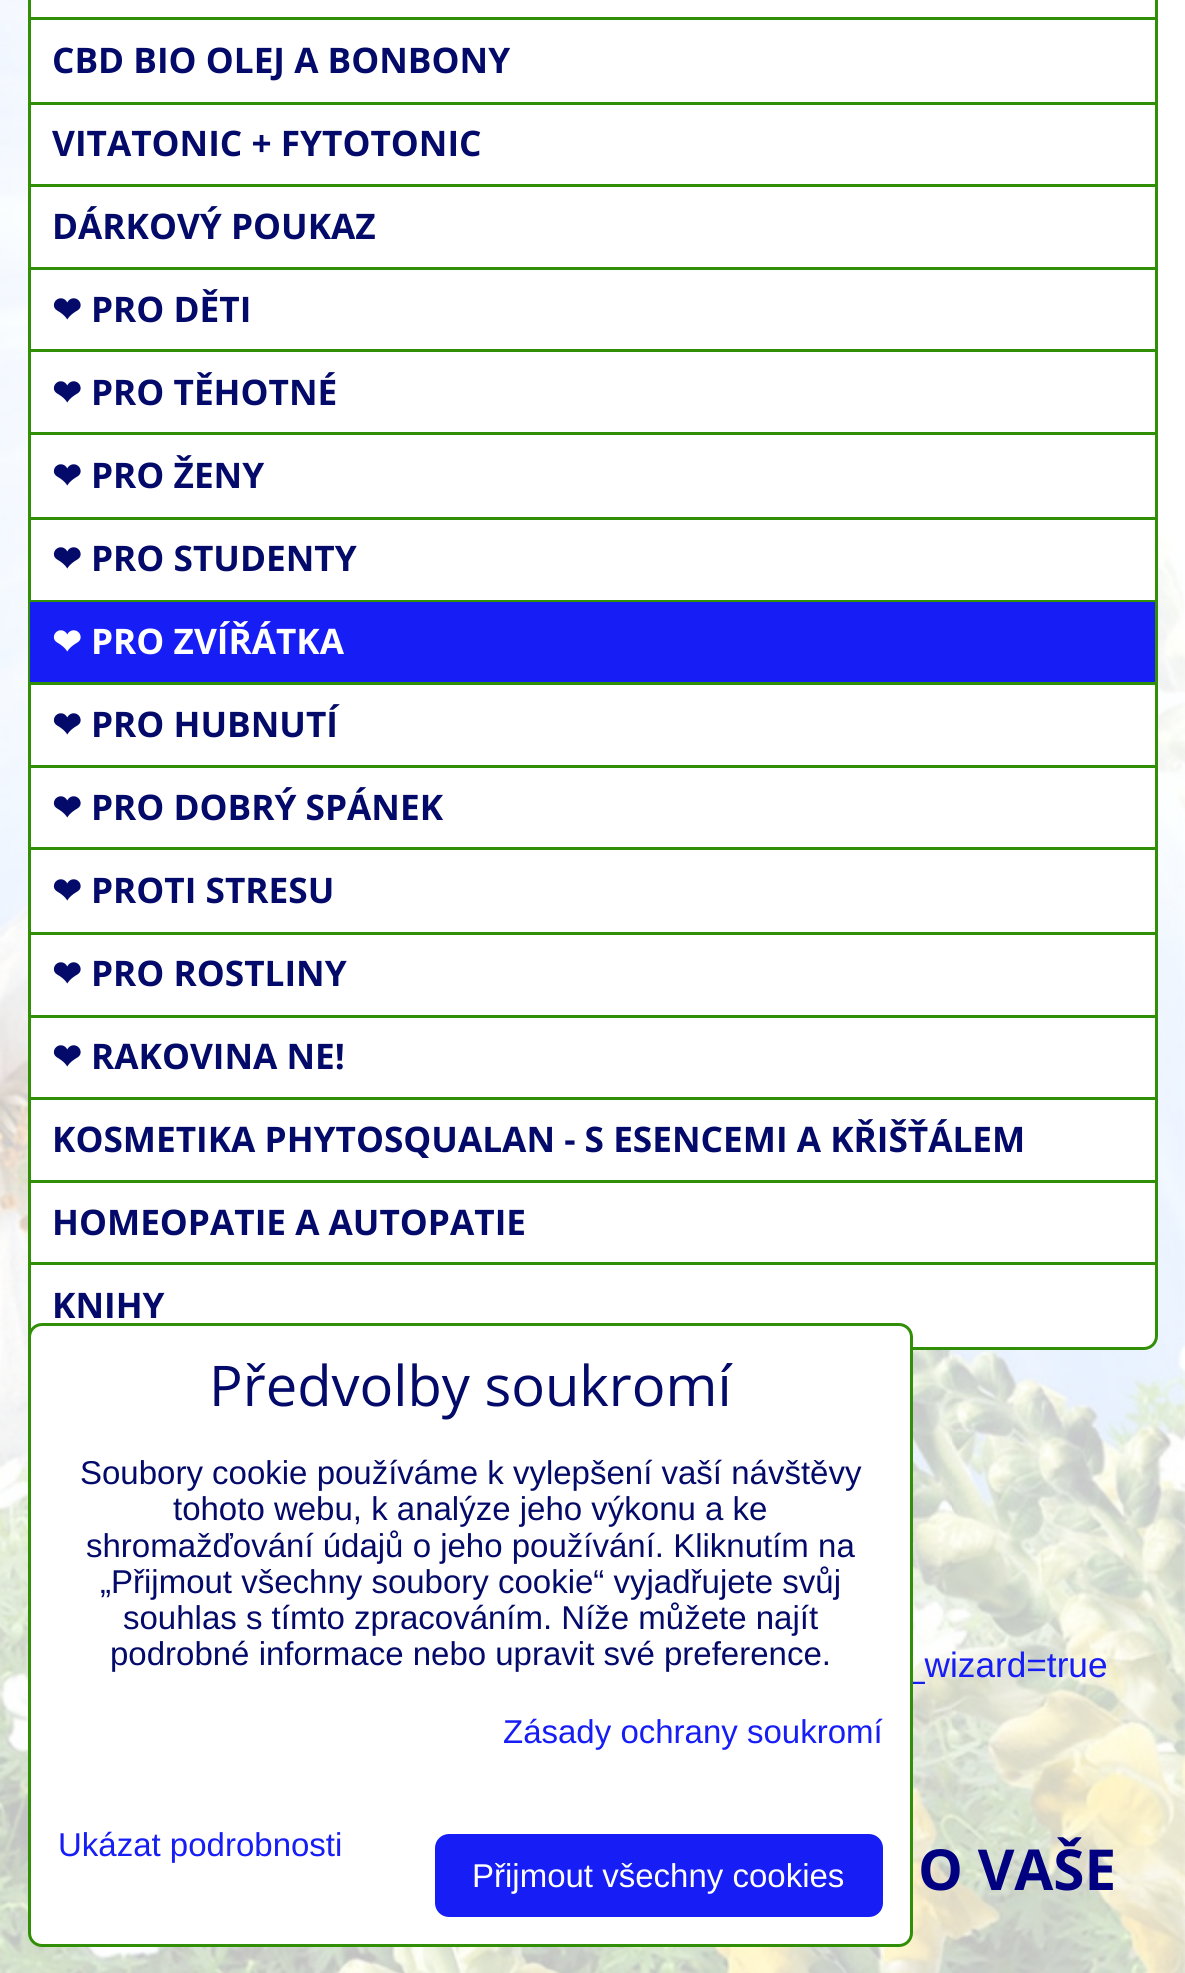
#include <cairo.h>
#include <math.h>
#include <stddef.h>

typedef struct { double x, y; const char *s; } line_t;

static void ink(cairo_t *ctx, unsigned color) {
    cairo_set_source_rgb(ctx, (color >> 16) / 255.0, (color >> 8 & 255) / 255.0, (color & 255) / 255.0);
}

static void round_path(cairo_t *ctx, double x, double y, double w, double h, double r) {
    cairo_new_sub_path(ctx);
    cairo_arc(ctx, x + w - r, y + h - r, r, 0, M_PI / 2);
    cairo_arc(ctx, x + r, y + h - r, r, M_PI / 2, M_PI);
    cairo_arc(ctx, x + r, y + r, r, M_PI, 1.5 * M_PI);
    cairo_arc(ctx, x + w - r, y + r, r, 1.5 * M_PI, 2 * M_PI);
    cairo_close_path(ctx);
}

static void paste(cairo_t *ctx, const char *path, double x, double y, double w, double h) {
    cairo_surface_t *image = cairo_image_surface_create_from_png(path);
    cairo_save(ctx);
    cairo_set_source_surface(ctx, image, x, y);
    cairo_rectangle(ctx, x, y, w, h);
    cairo_fill(ctx);
    cairo_restore(ctx);
    cairo_surface_destroy(image);
}

int main(void) {
    cairo_surface_t *surface = cairo_image_surface_create(CAIRO_FORMAT_RGB24, 1185, 1973);
    cairo_t *ctx = cairo_create(surface);
    cairo_font_options_t *options = cairo_font_options_create();
    cairo_font_options_set_hint_metrics(options, CAIRO_HINT_METRICS_OFF);
    cairo_font_options_set_hint_style(options, CAIRO_HINT_STYLE_NONE);
    cairo_set_font_options(ctx, options);
    cairo_set_miter_limit(ctx, 4);
    ink(ctx, 0xFFFFFF);
    cairo_paint(ctx);
    paste(ctx, "media/1.png", 0, 0, 1185, 1973);
    ink(ctx, 0xFFFFFF);
    round_path(ctx, 29.5, -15.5, 1127, 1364, 12.5);
    cairo_fill_preserve(ctx);
    ink(ctx, 0x308F07);
    cairo_set_line_width(ctx, 3);
    cairo_stroke(ctx);
    cairo_rectangle(ctx, 30, 17, 1125, 3);
    cairo_fill(ctx);
    cairo_rectangle(ctx, 30, 102, 1125, 3);
    cairo_fill(ctx);
    cairo_select_font_face(ctx, "Open Sans", CAIRO_FONT_SLANT_NORMAL, CAIRO_FONT_WEIGHT_BOLD);
    cairo_set_font_size(ctx, 35.2);
    ink(ctx, 0x030A69);
    cairo_move_to(ctx, 52, 73);
    cairo_show_text(ctx, "CBD BIO OLEJ A BONBONY");
    ink(ctx, 0x308F07);
    cairo_rectangle(ctx, 30, 184, 1125, 3);
    cairo_fill(ctx);
    ink(ctx, 0x030A69);
    cairo_move_to(ctx, 52, 156);
    cairo_show_text(ctx, "VITATONIC + FYTOTONIC");
    ink(ctx, 0x308F07);
    cairo_rectangle(ctx, 30, 267, 1125, 3);
    cairo_fill(ctx);
    ink(ctx, 0x030A69);
    cairo_move_to(ctx, 52, 239);
    cairo_show_text(ctx, "DÁRKOVÝ POUKAZ");
    ink(ctx, 0x308F07);
    cairo_rectangle(ctx, 30, 349, 1125, 3);
    cairo_fill(ctx);
    cairo_select_font_face(ctx, "DejaVu Sans", CAIRO_FONT_SLANT_NORMAL, CAIRO_FONT_WEIGHT_BOLD);
    ink(ctx, 0x030A69);
    cairo_move_to(ctx, 52, 322);
    cairo_show_text(ctx, "❤");
    cairo_select_font_face(ctx, "Open Sans", CAIRO_FONT_SLANT_NORMAL, CAIRO_FONT_WEIGHT_BOLD);
    cairo_move_to(ctx, 91, 322);
    cairo_show_text(ctx, "PRO DĚTI");
    ink(ctx, 0x308F07);
    cairo_rectangle(ctx, 30, 432, 1125, 3);
    cairo_fill(ctx);
    cairo_select_font_face(ctx, "DejaVu Sans", CAIRO_FONT_SLANT_NORMAL, CAIRO_FONT_WEIGHT_BOLD);
    ink(ctx, 0x030A69);
    cairo_move_to(ctx, 52, 405);
    cairo_show_text(ctx, "❤");
    cairo_select_font_face(ctx, "Open Sans", CAIRO_FONT_SLANT_NORMAL, CAIRO_FONT_WEIGHT_BOLD);
    cairo_move_to(ctx, 91, 405);
    cairo_show_text(ctx, "PRO TĚHOTNÉ");
    ink(ctx, 0x308F07);
    cairo_rectangle(ctx, 30, 517, 1125, 3);
    cairo_fill(ctx);
    cairo_select_font_face(ctx, "DejaVu Sans", CAIRO_FONT_SLANT_NORMAL, CAIRO_FONT_WEIGHT_BOLD);
    ink(ctx, 0x030A69);
    cairo_move_to(ctx, 52, 488);
    cairo_show_text(ctx, "❤");
    cairo_select_font_face(ctx, "Open Sans", CAIRO_FONT_SLANT_NORMAL, CAIRO_FONT_WEIGHT_BOLD);
    cairo_move_to(ctx, 91, 488);
    cairo_show_text(ctx, "PRO ŽENY");
    ink(ctx, 0x308F07);
    cairo_rectangle(ctx, 30, 600, 1125, 2);
    cairo_fill(ctx);
    cairo_select_font_face(ctx, "DejaVu Sans", CAIRO_FONT_SLANT_NORMAL, CAIRO_FONT_WEIGHT_BOLD);
    ink(ctx, 0x030A69);
    cairo_move_to(ctx, 52, 571);
    cairo_show_text(ctx, "❤");
    cairo_select_font_face(ctx, "Open Sans", CAIRO_FONT_SLANT_NORMAL, CAIRO_FONT_WEIGHT_BOLD);
    cairo_move_to(ctx, 91, 571);
    cairo_show_text(ctx, "PRO STUDENTY");
    ink(ctx, 0x161DF5);
    cairo_rectangle(ctx, 30, 602, 1125, 80);
    cairo_fill(ctx);
    ink(ctx, 0x308F07);
    cairo_rectangle(ctx, 30, 682, 1125, 3);
    cairo_fill(ctx);
    cairo_select_font_face(ctx, "DejaVu Sans", CAIRO_FONT_SLANT_NORMAL, CAIRO_FONT_WEIGHT_BOLD);
    ink(ctx, 0xFFFFFF);
    cairo_move_to(ctx, 52, 654);
    cairo_show_text(ctx, "❤");
    cairo_select_font_face(ctx, "Open Sans", CAIRO_FONT_SLANT_NORMAL, CAIRO_FONT_WEIGHT_BOLD);
    cairo_move_to(ctx, 91, 654);
    cairo_show_text(ctx, "PRO ZVÍŘÁTKA");
    ink(ctx, 0x308F07);
    cairo_rectangle(ctx, 30, 765, 1125, 3);
    cairo_fill(ctx);
    cairo_select_font_face(ctx, "DejaVu Sans", CAIRO_FONT_SLANT_NORMAL, CAIRO_FONT_WEIGHT_BOLD);
    ink(ctx, 0x030A69);
    cairo_move_to(ctx, 52, 737);
    cairo_show_text(ctx, "❤");
    cairo_select_font_face(ctx, "Open Sans", CAIRO_FONT_SLANT_NORMAL, CAIRO_FONT_WEIGHT_BOLD);
    cairo_move_to(ctx, 91, 737);
    cairo_show_text(ctx, "PRO HUBNUTÍ");
    ink(ctx, 0x308F07);
    cairo_rectangle(ctx, 30, 847, 1125, 3);
    cairo_fill(ctx);
    cairo_select_font_face(ctx, "DejaVu Sans", CAIRO_FONT_SLANT_NORMAL, CAIRO_FONT_WEIGHT_BOLD);
    ink(ctx, 0x030A69);
    cairo_move_to(ctx, 52, 820);
    cairo_show_text(ctx, "❤");
    cairo_select_font_face(ctx, "Open Sans", CAIRO_FONT_SLANT_NORMAL, CAIRO_FONT_WEIGHT_BOLD);
    cairo_move_to(ctx, 91, 820);
    cairo_show_text(ctx, "PRO DOBRÝ SPÁNEK");
    ink(ctx, 0x308F07);
    cairo_rectangle(ctx, 30, 932, 1125, 3);
    cairo_fill(ctx);
    cairo_select_font_face(ctx, "DejaVu Sans", CAIRO_FONT_SLANT_NORMAL, CAIRO_FONT_WEIGHT_BOLD);
    ink(ctx, 0x030A69);
    cairo_move_to(ctx, 52, 903);
    cairo_show_text(ctx, "❤");
    cairo_select_font_face(ctx, "Open Sans", CAIRO_FONT_SLANT_NORMAL, CAIRO_FONT_WEIGHT_BOLD);
    cairo_move_to(ctx, 91, 903);
    cairo_show_text(ctx, "PROTI STRESU");
    ink(ctx, 0x308F07);
    cairo_rectangle(ctx, 30, 1015, 1125, 3);
    cairo_fill(ctx);
    cairo_select_font_face(ctx, "DejaVu Sans", CAIRO_FONT_SLANT_NORMAL, CAIRO_FONT_WEIGHT_BOLD);
    ink(ctx, 0x030A69);
    cairo_move_to(ctx, 52, 986);
    cairo_show_text(ctx, "❤");
    cairo_select_font_face(ctx, "Open Sans", CAIRO_FONT_SLANT_NORMAL, CAIRO_FONT_WEIGHT_BOLD);
    cairo_move_to(ctx, 91, 986);
    cairo_show_text(ctx, "PRO ROSTLINY");
    ink(ctx, 0x308F07);
    cairo_rectangle(ctx, 30, 1097, 1125, 3);
    cairo_fill(ctx);
    cairo_select_font_face(ctx, "DejaVu Sans", CAIRO_FONT_SLANT_NORMAL, CAIRO_FONT_WEIGHT_BOLD);
    ink(ctx, 0x030A69);
    cairo_move_to(ctx, 52, 1069);
    cairo_show_text(ctx, "❤");
    cairo_select_font_face(ctx, "Open Sans", CAIRO_FONT_SLANT_NORMAL, CAIRO_FONT_WEIGHT_BOLD);
    cairo_move_to(ctx, 91, 1069);
    cairo_show_text(ctx, "RAKOVINA NE!");
    ink(ctx, 0x308F07);
    cairo_rectangle(ctx, 30, 1180, 1125, 3);
    cairo_fill(ctx);
    ink(ctx, 0x030A69);
    cairo_move_to(ctx, 52, 1152);
    cairo_show_text(ctx, "KOSMETIKA PHYTOSQUALAN - S ESENCEMI A KŘIŠŤÁLEM");
    ink(ctx, 0x308F07);
    cairo_rectangle(ctx, 30, 1262, 1125, 3);
    cairo_fill(ctx);
    ink(ctx, 0x030A69);
    cairo_move_to(ctx, 52, 1235);
    cairo_show_text(ctx, "HOMEOPATIE A AUTOPATIE");
    cairo_move_to(ctx, 52, 1318);
    cairo_show_text(ctx, "KNIHY");
    cairo_select_font_face(ctx, "Liberation Sans", CAIRO_FONT_SLANT_NORMAL, CAIRO_FONT_WEIGHT_NORMAL);
    ink(ctx, 0x161DF5);
    cairo_move_to(ctx, 905, 1677);
    cairo_show_text(ctx, "_wizard=true");
    cairo_select_font_face(ctx, "Open Sans", CAIRO_FONT_SLANT_NORMAL, CAIRO_FONT_WEIGHT_BOLD);
    cairo_set_font_size(ctx, 56.5);
    ink(ctx, 0x000080);
    cairo_move_to(ctx, 918, 1890);
    cairo_show_text(ctx, "O VAŠE");
    ink(ctx, 0xFFFFFF);
    round_path(ctx, 29.5, 1324.5, 882, 621, 12.5);
    cairo_fill_preserve(ctx);
    ink(ctx, 0x308F07);
    cairo_stroke(ctx);
    cairo_select_font_face(ctx, "Open Sans", CAIRO_FONT_SLANT_NORMAL, CAIRO_FONT_WEIGHT_NORMAL);
    cairo_set_font_size(ctx, 56.1);
    ink(ctx, 0x030A69);
    cairo_move_to(ctx, 209, 1406);
    cairo_show_text(ctx, "Předvolby soukromí");
    cairo_select_font_face(ctx, "Liberation Sans", CAIRO_FONT_SLANT_NORMAL, CAIRO_FONT_WEIGHT_NORMAL);
    cairo_set_font_size(ctx, 33);
    {
        static const line_t items[] = {
            {80, 1484, "Soubory cookie používáme k vylepšení vaší návštěvy"},
            {173, 1520, "tohoto webu, k analýze jeho výkonu a ke"},
            {86, 1557, "shromažďování údajů o jeho používání. Kliknutím na"},
            {100, 1593, "„Přijmout všechny soubory cookie“ vyjadřujete svůj"},
            {123, 1629, "souhlas s tímto zpracováním. Níže můžete najít"},
            {110, 1665, "podrobné informace nebo upravit své preference."},
        };
        for (size_t i = 0; i < sizeof items / sizeof *items; i++) {
            cairo_move_to(ctx, items[i].x, items[i].y);
            cairo_show_text(ctx, items[i].s);
        }
    }
    ink(ctx, 0x161DF5);
    cairo_move_to(ctx, 503, 1743);
    cairo_show_text(ctx, "Zásady ochrany soukromí");
    cairo_move_to(ctx, 58, 1856);
    cairo_show_text(ctx, "Ukázat podrobnosti");
    round_path(ctx, 436.5, 1835.5, 445, 80, 12.5);
    cairo_fill_preserve(ctx);
    cairo_stroke(ctx);
    ink(ctx, 0xFFFFFF);
    cairo_move_to(ctx, 472, 1887);
    cairo_show_text(ctx, "Přijmout všechny cookies");
    cairo_surface_write_to_png(surface, "image.png");
    cairo_font_options_destroy(options);
    cairo_destroy(ctx);
    cairo_surface_destroy(surface);
    return 0;
}
